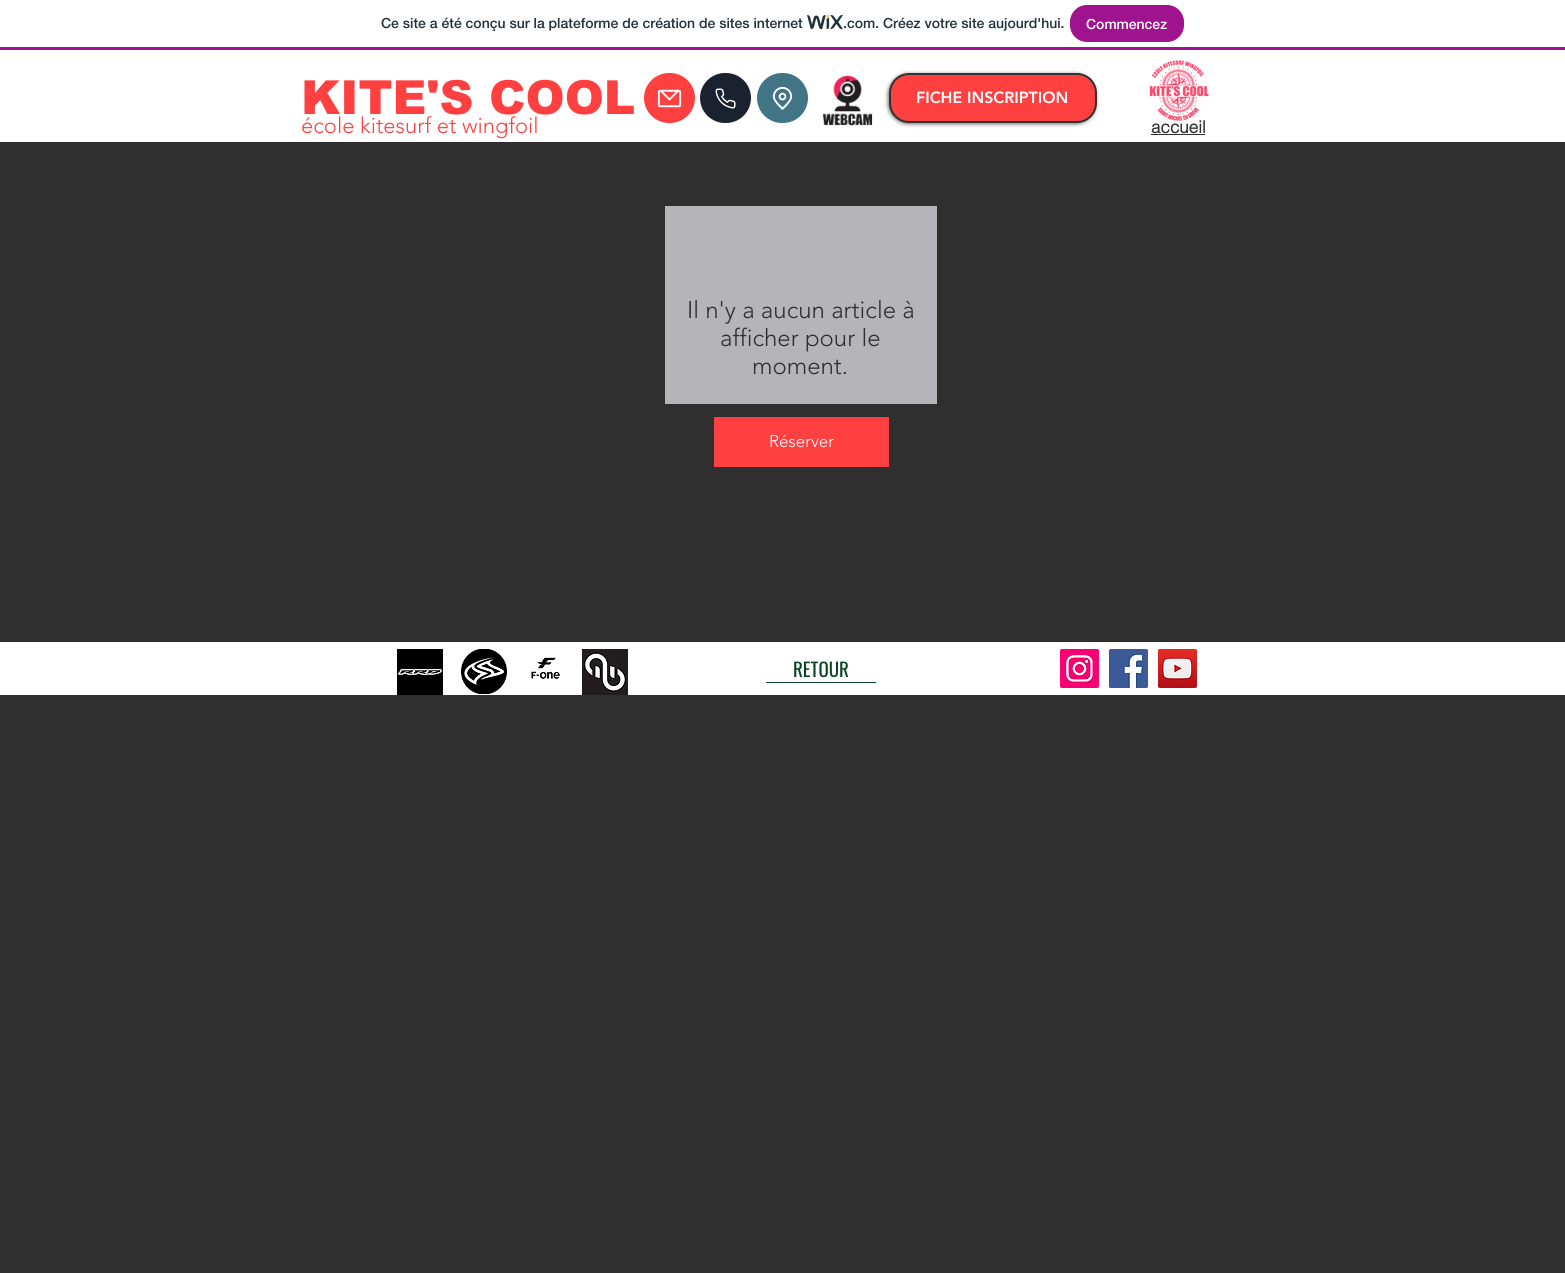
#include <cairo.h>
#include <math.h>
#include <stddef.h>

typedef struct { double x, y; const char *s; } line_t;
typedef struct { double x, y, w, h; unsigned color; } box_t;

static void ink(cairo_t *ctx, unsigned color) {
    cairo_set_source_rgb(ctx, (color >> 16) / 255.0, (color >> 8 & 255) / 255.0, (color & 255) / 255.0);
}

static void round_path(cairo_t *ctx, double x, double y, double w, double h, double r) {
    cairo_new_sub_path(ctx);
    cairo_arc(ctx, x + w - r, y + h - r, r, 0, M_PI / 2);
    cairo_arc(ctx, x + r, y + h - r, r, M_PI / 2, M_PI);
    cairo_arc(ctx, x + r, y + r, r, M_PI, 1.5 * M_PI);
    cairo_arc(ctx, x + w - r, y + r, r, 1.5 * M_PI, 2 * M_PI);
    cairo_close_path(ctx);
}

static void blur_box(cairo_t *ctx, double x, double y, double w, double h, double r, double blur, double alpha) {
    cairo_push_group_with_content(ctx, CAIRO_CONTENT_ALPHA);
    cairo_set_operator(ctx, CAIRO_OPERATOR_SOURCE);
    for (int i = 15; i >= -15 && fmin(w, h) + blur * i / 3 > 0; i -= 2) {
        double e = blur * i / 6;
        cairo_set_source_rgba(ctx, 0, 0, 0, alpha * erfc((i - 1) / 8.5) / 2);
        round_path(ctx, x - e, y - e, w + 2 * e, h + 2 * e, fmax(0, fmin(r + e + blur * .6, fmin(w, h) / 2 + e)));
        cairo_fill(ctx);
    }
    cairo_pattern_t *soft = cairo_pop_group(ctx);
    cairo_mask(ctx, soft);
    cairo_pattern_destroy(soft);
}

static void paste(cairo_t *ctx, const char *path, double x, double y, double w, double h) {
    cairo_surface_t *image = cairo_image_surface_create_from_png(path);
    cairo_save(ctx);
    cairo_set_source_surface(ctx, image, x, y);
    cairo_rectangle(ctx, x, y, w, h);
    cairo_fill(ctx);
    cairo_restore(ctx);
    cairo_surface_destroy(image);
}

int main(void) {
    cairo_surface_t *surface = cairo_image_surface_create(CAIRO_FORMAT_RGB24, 1565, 1273);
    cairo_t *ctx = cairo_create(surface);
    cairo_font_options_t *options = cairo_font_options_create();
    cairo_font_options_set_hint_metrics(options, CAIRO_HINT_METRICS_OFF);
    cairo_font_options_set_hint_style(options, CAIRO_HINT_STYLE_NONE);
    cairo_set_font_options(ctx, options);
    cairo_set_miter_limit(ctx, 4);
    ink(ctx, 0xFFFFFF);
    cairo_paint(ctx);
    ink(ctx, 0xA0138E);
    cairo_rectangle(ctx, 0, 47, 1565, 3);
    cairo_fill(ctx);
    cairo_select_font_face(ctx, "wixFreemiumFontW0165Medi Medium", CAIRO_FONT_SLANT_NORMAL, CAIRO_FONT_WEIGHT_NORMAL);
    cairo_set_font_size(ctx, 14);
    ink(ctx, 0x20303C);
    cairo_move_to(ctx, 381, 28);
    cairo_show_text(ctx, "Ce site a été conçu sur la plateforme de création de sites internet");
    paste(ctx, "media/1.png", 807, 15, 36, 15);
    cairo_move_to(ctx, 843, 28);
    cairo_show_text(ctx, ".com. Créez votre site aujourd'hui.");
    ink(ctx, 0xA0138E);
    round_path(ctx, 1070.5, 5.5, 113, 36, 16.5);
    cairo_fill_preserve(ctx);
    cairo_set_line_width(ctx, 1);
    cairo_stroke(ctx);
    ink(ctx, 0xFFFFFF);
    cairo_move_to(ctx, 1086, 29);
    cairo_show_text(ctx, "Commencez");
    cairo_select_font_face(ctx, "arial Black", CAIRO_FONT_SLANT_NORMAL, CAIRO_FONT_WEIGHT_NORMAL);
    cairo_set_font_size(ctx, 47);
    ink(ctx, 0xFF4040);
    cairo_move_to(ctx, 301, 114);
    cairo_show_text(ctx, "KITE'S COOL");
    round_path(ctx, 644, 73, 51, 50, 25);
    cairo_fill(ctx);
    paste(ctx, "media/2.png", 657, 89, 25, 19);
    ink(ctx, 0x1B222F);
    round_path(ctx, 700, 73, 51, 50, 25);
    cairo_fill(ctx);
    paste(ctx, "media/3.png", 715, 88, 21, 21);
    ink(ctx, 0x417586);
    round_path(ctx, 757, 73, 51, 50, 25);
    cairo_fill(ctx);
    paste(ctx, "media/4.png", 772, 86, 21, 24);
    paste(ctx, "media/5.png", 823, 75, 50, 51);
    ink(ctx, 0x000000);
    blur_box(ctx, 888, 74, 208, 50, 20, 2, 0.6);
    ink(ctx, 0xFF4040);
    round_path(ctx, 890, 74, 206, 48, 19);
    cairo_fill_preserve(ctx);
    ink(ctx, 0x323232);
    cairo_set_line_width(ctx, 2);
    cairo_stroke(ctx);
    cairo_select_font_face(ctx, "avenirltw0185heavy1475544 Black", CAIRO_FONT_SLANT_NORMAL, CAIRO_FONT_WEIGHT_NORMAL);
    cairo_set_font_size(ctx, 16);
    ink(ctx, 0xFFFFFF);
    cairo_move_to(ctx, 916, 103);
    cairo_show_text(ctx, "FICHE INSCRIPTION");
    paste(ctx, "media/6.png", 1149, 60, 60, 61);
    cairo_select_font_face(ctx, "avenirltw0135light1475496 Light", CAIRO_FONT_SLANT_NORMAL, CAIRO_FONT_WEIGHT_NORMAL);
    cairo_set_font_size(ctx, 22);
    ink(ctx, 0xFF4040);
    cairo_move_to(ctx, 301, 133);
    cairo_show_text(ctx, "école kitesurf et wingfoil");
    cairo_select_font_face(ctx, "helvetica", CAIRO_FONT_SLANT_NORMAL, CAIRO_FONT_WEIGHT_BOLD);
    cairo_set_font_size(ctx, 17);
    ink(ctx, 0x2F2F30);
    cairo_move_to(ctx, 1151, 133);
    cairo_show_text(ctx, "accueil");
    {
        static const box_t items[] = {
            {1151, 134, 54, 1, 0x2F2E2E},
            {0, 142, 1565, 1131, 0x2F2F30},
            {665, 206, 272, 198, 0xB5B4B9},
        };
        for (size_t i = 0; i < sizeof items / sizeof *items; i++) {
            ink(ctx, items[i].color);
            cairo_rectangle(ctx, items[i].x, items[i].y, items[i].w, items[i].h);
            cairo_fill(ctx);
        }
    }
    cairo_select_font_face(ctx, "avenirltw0135light1475496 Light", CAIRO_FONT_SLANT_NORMAL, CAIRO_FONT_WEIGHT_NORMAL);
    cairo_set_font_size(ctx, 24);
    ink(ctx, 0x2F2F30);
    {
        static const line_t items[] = {
            {687, 318, "Il n'y a aucun article à"},
            {720, 346, "afficher pour le"},
            {752, 374, "moment."},
        };
        for (size_t i = 0; i < sizeof items / sizeof *items; i++) {
            cairo_move_to(ctx, items[i].x, items[i].y);
            cairo_show_text(ctx, items[i].s);
        }
    }
    ink(ctx, 0xFF4040);
    cairo_rectangle(ctx, 714, 417, 175, 50);
    cairo_fill(ctx);
    cairo_set_font_size(ctx, 17);
    ink(ctx, 0xFFFFFF);
    cairo_move_to(ctx, 769, 447);
    cairo_show_text(ctx, "Réserver");
    cairo_rectangle(ctx, 0, 642, 1565, 53);
    cairo_fill(ctx);
    paste(ctx, "media/7.png", 397, 649, 46, 46);
    paste(ctx, "media/8.png", 461, 649, 46, 45);
    paste(ctx, "media/9.png", 531, 657, 29, 22);
    paste(ctx, "media/10.png", 582, 649, 46, 46);
    ink(ctx, 0x0C4426);
    cairo_rectangle(ctx, 766, 682, 110, 1);
    cairo_fill(ctx);
    cairo_select_font_face(ctx, "Oswald", CAIRO_FONT_SLANT_NORMAL, CAIRO_FONT_WEIGHT_NORMAL);
    cairo_set_font_size(ctx, 19);
    cairo_move_to(ctx, 793, 677);
    cairo_show_text(ctx, "RETOUR");
    paste(ctx, "media/11.png", 1060, 649, 39, 39);
    paste(ctx, "media/12.png", 1109, 649, 39, 39);
    paste(ctx, "media/13.png", 1158, 649, 39, 39);
    cairo_surface_write_to_png(surface, "image.png");
    cairo_font_options_destroy(options);
    cairo_destroy(ctx);
    cairo_surface_destroy(surface);
    return 0;
}
